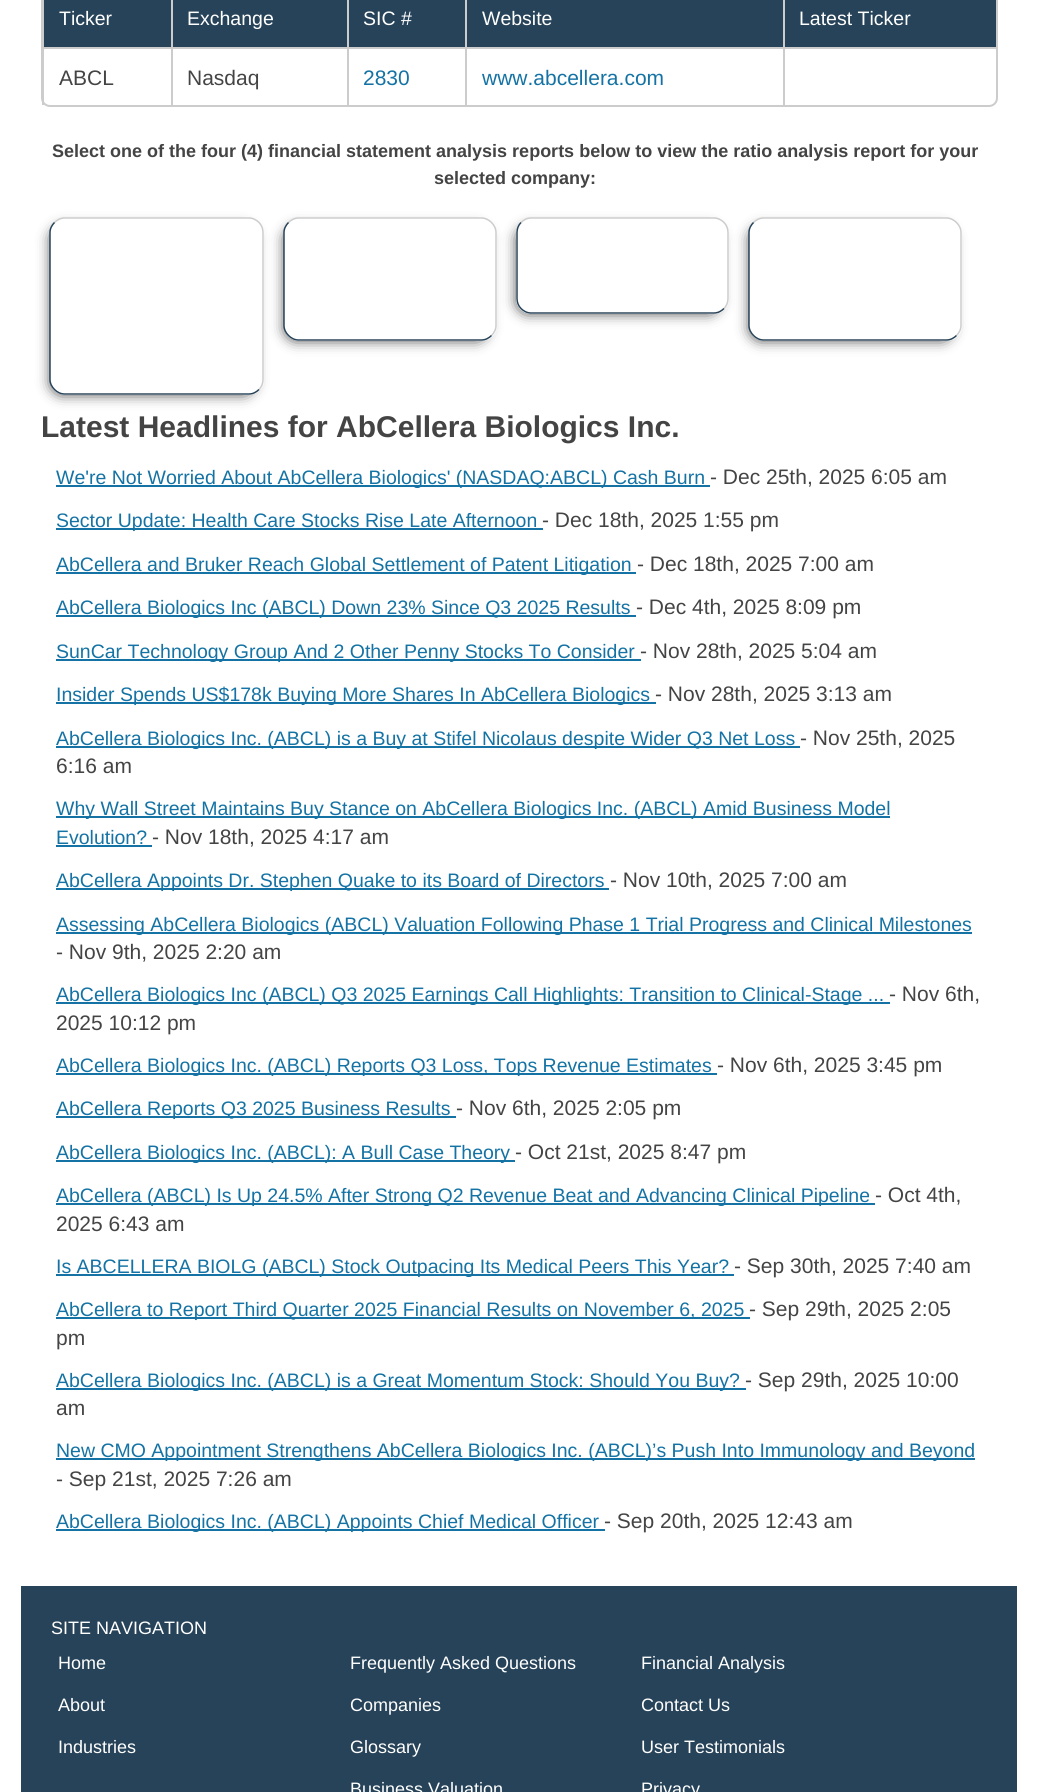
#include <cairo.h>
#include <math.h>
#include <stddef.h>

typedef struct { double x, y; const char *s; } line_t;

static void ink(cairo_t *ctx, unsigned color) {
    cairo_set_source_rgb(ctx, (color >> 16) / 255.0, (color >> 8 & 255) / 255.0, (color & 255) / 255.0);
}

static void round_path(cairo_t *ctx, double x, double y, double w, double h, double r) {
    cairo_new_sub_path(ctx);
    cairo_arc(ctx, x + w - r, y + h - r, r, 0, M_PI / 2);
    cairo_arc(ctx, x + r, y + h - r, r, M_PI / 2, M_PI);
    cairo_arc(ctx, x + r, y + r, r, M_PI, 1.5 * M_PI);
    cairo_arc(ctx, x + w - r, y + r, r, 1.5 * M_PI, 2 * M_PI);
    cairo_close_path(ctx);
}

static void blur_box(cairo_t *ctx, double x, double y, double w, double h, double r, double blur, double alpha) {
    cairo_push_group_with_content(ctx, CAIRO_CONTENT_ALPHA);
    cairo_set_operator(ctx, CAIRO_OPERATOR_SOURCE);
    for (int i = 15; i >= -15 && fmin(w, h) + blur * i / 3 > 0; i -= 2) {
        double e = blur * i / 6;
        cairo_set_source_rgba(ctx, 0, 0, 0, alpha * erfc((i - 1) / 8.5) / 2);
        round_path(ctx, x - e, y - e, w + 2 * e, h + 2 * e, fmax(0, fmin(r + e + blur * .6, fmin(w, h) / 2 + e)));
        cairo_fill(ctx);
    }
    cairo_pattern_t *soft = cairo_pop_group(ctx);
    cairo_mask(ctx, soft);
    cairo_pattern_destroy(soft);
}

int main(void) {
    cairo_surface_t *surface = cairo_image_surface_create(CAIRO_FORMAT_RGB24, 1037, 1792);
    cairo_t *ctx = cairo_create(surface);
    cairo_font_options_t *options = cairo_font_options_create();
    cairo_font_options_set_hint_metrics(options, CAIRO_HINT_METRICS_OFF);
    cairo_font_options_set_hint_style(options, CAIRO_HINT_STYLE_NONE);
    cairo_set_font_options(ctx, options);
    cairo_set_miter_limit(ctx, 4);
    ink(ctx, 0xFFFFFF);
    cairo_paint(ctx);
    round_path(ctx, 42, -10, 955, 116, 8);
    ink(ctx, 0xCCCCCC);
    cairo_stroke(ctx);
    ink(ctx, 0x274359);
    cairo_rectangle(ctx, 44, 0, 127, 47);
    cairo_fill(ctx);
    ink(ctx, 0xCCCCCC);
    cairo_rectangle(ctx, 43, 0, 1, 47);
    cairo_fill(ctx);
    cairo_select_font_face(ctx, "Liberation Sans", CAIRO_FONT_SLANT_NORMAL, CAIRO_FONT_WEIGHT_NORMAL);
    cairo_set_font_size(ctx, 19.5);
    ink(ctx, 0xFFFFFF);
    cairo_move_to(ctx, 59, 25);
    cairo_show_text(ctx, "Ticker");
    ink(ctx, 0x274359);
    cairo_rectangle(ctx, 173, 0, 174, 47);
    cairo_fill(ctx);
    ink(ctx, 0xCCCCCC);
    cairo_rectangle(ctx, 171, 0, 2, 47);
    cairo_fill(ctx);
    ink(ctx, 0xFFFFFF);
    cairo_move_to(ctx, 187, 25);
    cairo_show_text(ctx, "Exchange");
    ink(ctx, 0x274359);
    cairo_rectangle(ctx, 349, 0, 116, 47);
    cairo_fill(ctx);
    ink(ctx, 0xCCCCCC);
    cairo_rectangle(ctx, 347, 0, 2, 47);
    cairo_fill(ctx);
    ink(ctx, 0xFFFFFF);
    cairo_move_to(ctx, 363, 25);
    cairo_show_text(ctx, "SIC #");
    ink(ctx, 0x274359);
    cairo_rectangle(ctx, 467, 0, 316, 47);
    cairo_fill(ctx);
    ink(ctx, 0xCCCCCC);
    cairo_rectangle(ctx, 465, 0, 2, 47);
    cairo_fill(ctx);
    ink(ctx, 0xFFFFFF);
    cairo_move_to(ctx, 482, 25);
    cairo_show_text(ctx, "Website");
    ink(ctx, 0x274359);
    cairo_rectangle(ctx, 785, 0, 211, 47);
    cairo_fill(ctx);
    ink(ctx, 0xCCCCCC);
    cairo_rectangle(ctx, 783, 0, 2, 47);
    cairo_fill(ctx);
    ink(ctx, 0xFFFFFF);
    cairo_move_to(ctx, 799, 25);
    cairo_show_text(ctx, "Latest Ticker");
    ink(ctx, 0xCCCCCC);
    cairo_rectangle(ctx, 42, 47, 954, 2);
    cairo_fill(ctx);
    cairo_rectangle(ctx, 42, 47, 2, 58);
    cairo_fill(ctx);
    cairo_set_font_size(ctx, 21);
    ink(ctx, 0x444444);
    cairo_move_to(ctx, 59, 85);
    cairo_show_text(ctx, "ABCL");
    ink(ctx, 0xCCCCCC);
    cairo_rectangle(ctx, 171, 47, 2, 58);
    cairo_fill(ctx);
    ink(ctx, 0x444444);
    cairo_move_to(ctx, 187, 85);
    cairo_show_text(ctx, "Nasdaq");
    ink(ctx, 0xCCCCCC);
    cairo_rectangle(ctx, 347, 47, 2, 58);
    cairo_fill(ctx);
    ink(ctx, 0x1473A4);
    cairo_move_to(ctx, 363, 85);
    cairo_show_text(ctx, "2830");
    ink(ctx, 0xCCCCCC);
    cairo_rectangle(ctx, 465, 47, 2, 58);
    cairo_fill(ctx);
    ink(ctx, 0x1473A4);
    cairo_move_to(ctx, 482, 85);
    cairo_show_text(ctx, "www.abcellera.com");
    ink(ctx, 0xCCCCCC);
    cairo_rectangle(ctx, 783, 47, 2, 58);
    cairo_fill(ctx);
    cairo_select_font_face(ctx, "Liberation Sans", CAIRO_FONT_SLANT_NORMAL, CAIRO_FONT_WEIGHT_BOLD);
    cairo_set_font_size(ctx, 18);
    ink(ctx, 0x444444);
    cairo_move_to(ctx, 52, 157);
    cairo_show_text(ctx, "Select one of the four (4) financial statement analysis reports below to view the ratio analysis report for your");
    cairo_move_to(ctx, 434, 184);
    cairo_show_text(ctx, "selected company:");
    ink(ctx, 0x000000);
    blur_box(ctx, 53, 230, 199, 162, 8, 7.5, 1);
    ink(ctx, 0xFFFFFF);
    round_path(ctx, 50, 218, 214, 177, 15);
    cairo_fill(ctx);
    cairo_new_path(ctx);
    cairo_move_to(ctx, 54.5, 222.5);
    cairo_curve_to(ctx, 57, 220, 60.5, 218, 64.5, 218);
    cairo_line_to(ctx, 249, 218);
    cairo_curve_to(ctx, 253, 218, 256.5, 220, 259, 222.5);
    cairo_curve_to(ctx, 261.5, 225, 263, 228.5, 263, 232.5);
    cairo_line_to(ctx, 263, 379.5);
    cairo_curve_to(ctx, 263, 383.5, 261.5, 387, 259, 389.5);
    ink(ctx, 0xCCCCCC);
    cairo_set_line_width(ctx, 1.5);
    cairo_stroke(ctx);
    cairo_new_path(ctx);
    cairo_move_to(ctx, 259, 389.5);
    cairo_curve_to(ctx, 256.5, 392, 253, 394, 249, 394);
    cairo_line_to(ctx, 64.5, 394);
    cairo_curve_to(ctx, 60.5, 394, 57, 392, 54.5, 389.5);
    cairo_curve_to(ctx, 52, 387, 50, 383.5, 50, 379.5);
    cairo_line_to(ctx, 50, 232.5);
    cairo_curve_to(ctx, 50, 228.5, 52, 225, 54.5, 222.5);
    ink(ctx, 0x274359);
    cairo_stroke(ctx);
    ink(ctx, 0x000000);
    blur_box(ctx, 287, 230, 198, 108, 8, 7.5, 1);
    ink(ctx, 0xFFFFFF);
    round_path(ctx, 284, 218, 213, 123, 15);
    cairo_fill(ctx);
    cairo_new_path(ctx);
    cairo_move_to(ctx, 288.5, 222.5);
    cairo_curve_to(ctx, 291, 220, 294.5, 218, 298.5, 218);
    cairo_line_to(ctx, 481.5, 218);
    cairo_curve_to(ctx, 485.5, 218, 489, 220, 491.5, 222.5);
    cairo_curve_to(ctx, 494, 225, 496, 228.5, 496, 232.5);
    cairo_line_to(ctx, 496, 325.5);
    cairo_curve_to(ctx, 496, 329.5, 494, 333, 491.5, 335.5);
    ink(ctx, 0xCCCCCC);
    cairo_stroke(ctx);
    cairo_new_path(ctx);
    cairo_move_to(ctx, 491.5, 335.5);
    cairo_curve_to(ctx, 489, 338, 485.5, 340, 481.5, 340);
    cairo_line_to(ctx, 298.5, 340);
    cairo_curve_to(ctx, 294.5, 340, 291, 338, 288.5, 335.5);
    cairo_curve_to(ctx, 286, 333, 284, 329.5, 284, 325.5);
    cairo_line_to(ctx, 284, 232.5);
    cairo_curve_to(ctx, 284, 228.5, 286, 225, 288.5, 222.5);
    ink(ctx, 0x274359);
    cairo_stroke(ctx);
    ink(ctx, 0x000000);
    blur_box(ctx, 519, 230, 198, 81, 8, 7.5, 1);
    ink(ctx, 0xFFFFFF);
    round_path(ctx, 516, 218, 213, 96, 15);
    cairo_fill(ctx);
    cairo_new_path(ctx);
    cairo_move_to(ctx, 521, 222.5);
    cairo_curve_to(ctx, 523.5, 220, 527, 218, 531, 218);
    cairo_line_to(ctx, 714, 218);
    cairo_curve_to(ctx, 718, 218, 721.5, 220, 724, 222.5);
    cairo_curve_to(ctx, 726.5, 225, 728, 228.5, 728, 232.5);
    cairo_line_to(ctx, 728, 298.5);
    cairo_curve_to(ctx, 728, 302.5, 726.5, 306, 724, 308.5);
    ink(ctx, 0xCCCCCC);
    cairo_stroke(ctx);
    cairo_new_path(ctx);
    cairo_move_to(ctx, 724, 308.5);
    cairo_curve_to(ctx, 721.5, 311, 718, 313, 714, 313);
    cairo_line_to(ctx, 531, 313);
    cairo_curve_to(ctx, 527, 313, 523.5, 311, 521, 308.5);
    cairo_curve_to(ctx, 518.5, 306, 517, 302.5, 517, 298.5);
    cairo_line_to(ctx, 517, 232.5);
    cairo_curve_to(ctx, 517, 228.5, 518.5, 225, 521, 222.5);
    ink(ctx, 0x274359);
    cairo_stroke(ctx);
    ink(ctx, 0x000000);
    blur_box(ctx, 752, 230, 198, 108, 8, 7.5, 1);
    ink(ctx, 0xFFFFFF);
    round_path(ctx, 749, 218, 213, 123, 15);
    cairo_fill(ctx);
    cairo_new_path(ctx);
    cairo_move_to(ctx, 753.5, 222.5);
    cairo_curve_to(ctx, 756, 220, 759.5, 218, 763.5, 218);
    cairo_line_to(ctx, 946.5, 218);
    cairo_curve_to(ctx, 950.5, 218, 954, 220, 956.5, 222.5);
    cairo_curve_to(ctx, 959, 225, 961, 228.5, 961, 232.5);
    cairo_line_to(ctx, 961, 325.5);
    cairo_curve_to(ctx, 961, 329.5, 959, 333, 956.5, 335.5);
    ink(ctx, 0xCCCCCC);
    cairo_stroke(ctx);
    cairo_new_path(ctx);
    cairo_move_to(ctx, 956.5, 335.5);
    cairo_curve_to(ctx, 954, 338, 950.5, 340, 946.5, 340);
    cairo_line_to(ctx, 763.5, 340);
    cairo_curve_to(ctx, 759.5, 340, 756, 338, 753.5, 335.5);
    cairo_curve_to(ctx, 751, 333, 749, 329.5, 749, 325.5);
    cairo_line_to(ctx, 749, 232.5);
    cairo_curve_to(ctx, 749, 228.5, 751, 225, 753.5, 222.5);
    ink(ctx, 0x274359);
    cairo_stroke(ctx);
    cairo_set_font_size(ctx, 30);
    ink(ctx, 0x444444);
    cairo_move_to(ctx, 41, 437);
    cairo_show_text(ctx, "Latest Headlines for AbCellera Biologics Inc.");
    ink(ctx, 0x1473A4);
    cairo_rectangle(ctx, 56, 485, 654, 2);
    cairo_fill(ctx);
    cairo_select_font_face(ctx, "Liberation Sans", CAIRO_FONT_SLANT_NORMAL, CAIRO_FONT_WEIGHT_NORMAL);
    cairo_set_font_size(ctx, 19.5);
    cairo_move_to(ctx, 56, 484);
    cairo_show_text(ctx, "We're Not Worried About AbCellera Biologics' (NASDAQ:ABCL) Cash Burn");
    cairo_set_font_size(ctx, 21);
    ink(ctx, 0x444444);
    cairo_move_to(ctx, 710, 484);
    cairo_show_text(ctx, "- Dec 25th, 2025 6:05 am");
    ink(ctx, 0x1473A4);
    cairo_rectangle(ctx, 56, 528, 487, 2);
    cairo_fill(ctx);
    cairo_set_font_size(ctx, 19.5);
    cairo_move_to(ctx, 56, 527);
    cairo_show_text(ctx, "Sector Update: Health Care Stocks Rise Late Afternoon");
    cairo_set_font_size(ctx, 21);
    ink(ctx, 0x444444);
    cairo_move_to(ctx, 542, 527);
    cairo_show_text(ctx, "- Dec 18th, 2025 1:55 pm");
    ink(ctx, 0x1473A4);
    cairo_rectangle(ctx, 56, 572, 580, 2);
    cairo_fill(ctx);
    cairo_set_font_size(ctx, 19.5);
    cairo_move_to(ctx, 56, 571);
    cairo_show_text(ctx, "AbCellera and Bruker Reach Global Settlement of Patent Litigation");
    cairo_set_font_size(ctx, 21);
    ink(ctx, 0x444444);
    cairo_move_to(ctx, 637, 571);
    cairo_show_text(ctx, "- Dec 18th, 2025 7:00 am");
    ink(ctx, 0x1473A4);
    cairo_rectangle(ctx, 56, 615, 580, 2);
    cairo_fill(ctx);
    cairo_set_font_size(ctx, 19.5);
    cairo_move_to(ctx, 56, 614);
    cairo_show_text(ctx, "AbCellera Biologics Inc (ABCL) Down 23% Since Q3 2025 Results");
    cairo_set_font_size(ctx, 21);
    ink(ctx, 0x444444);
    cairo_move_to(ctx, 636, 614);
    cairo_show_text(ctx, "- Dec 4th, 2025 8:09 pm");
    ink(ctx, 0x1473A4);
    cairo_rectangle(ctx, 56, 659, 585, 2);
    cairo_fill(ctx);
    cairo_set_font_size(ctx, 19.5);
    cairo_move_to(ctx, 56, 658);
    cairo_show_text(ctx, "SunCar Technology Group And 2 Other Penny Stocks To Consider");
    cairo_set_font_size(ctx, 21);
    ink(ctx, 0x444444);
    cairo_move_to(ctx, 640, 658);
    cairo_show_text(ctx, "- Nov 28th, 2025 5:04 am");
    ink(ctx, 0x1473A4);
    cairo_rectangle(ctx, 56, 702, 600, 2);
    cairo_fill(ctx);
    cairo_set_font_size(ctx, 19.5);
    cairo_move_to(ctx, 56, 701);
    cairo_show_text(ctx, "Insider Spends US$178k Buying More Shares In AbCellera Biologics");
    cairo_set_font_size(ctx, 21);
    ink(ctx, 0x444444);
    cairo_move_to(ctx, 655, 701);
    cairo_show_text(ctx, "- Nov 28th, 2025 3:13 am");
    ink(ctx, 0x1473A4);
    cairo_rectangle(ctx, 56, 746, 744, 2);
    cairo_fill(ctx);
    cairo_set_font_size(ctx, 19.5);
    cairo_move_to(ctx, 56, 745);
    cairo_show_text(ctx, "AbCellera Biologics Inc. (ABCL) is a Buy at Stifel Nicolaus despite Wider Q3 Net Loss");
    cairo_set_font_size(ctx, 21);
    ink(ctx, 0x444444);
    cairo_move_to(ctx, 800, 745);
    cairo_show_text(ctx, "- Nov 25th, 2025");
    cairo_move_to(ctx, 56, 773);
    cairo_show_text(ctx, "6:16 am");
    ink(ctx, 0x1473A4);
    cairo_rectangle(ctx, 56, 816, 834, 2);
    cairo_fill(ctx);
    cairo_set_font_size(ctx, 19.5);
    cairo_move_to(ctx, 56, 815);
    cairo_show_text(ctx, "Why Wall Street Maintains Buy Stance on AbCellera Biologics Inc. (ABCL) Amid Business Model");
    cairo_move_to(ctx, 56, 844);
    cairo_show_text(ctx, "Evolution?");
    cairo_rectangle(ctx, 56, 845, 96, 2);
    cairo_fill(ctx);
    cairo_set_font_size(ctx, 21);
    ink(ctx, 0x444444);
    cairo_move_to(ctx, 152, 844);
    cairo_show_text(ctx, "- Nov 18th, 2025 4:17 am");
    ink(ctx, 0x1473A4);
    cairo_rectangle(ctx, 56, 888, 553, 2);
    cairo_fill(ctx);
    cairo_set_font_size(ctx, 19.5);
    cairo_move_to(ctx, 56, 887);
    cairo_show_text(ctx, "AbCellera Appoints Dr. Stephen Quake to its Board of Directors");
    cairo_set_font_size(ctx, 21);
    ink(ctx, 0x444444);
    cairo_move_to(ctx, 610, 887);
    cairo_show_text(ctx, "- Nov 10th, 2025 7:00 am");
    ink(ctx, 0x1473A4);
    cairo_rectangle(ctx, 56, 932, 916, 2);
    cairo_fill(ctx);
    cairo_set_font_size(ctx, 19.5);
    cairo_move_to(ctx, 56, 931);
    cairo_show_text(ctx, "Assessing AbCellera Biologics (ABCL) Valuation Following Phase 1 Trial Progress and Clinical Milestones");
    cairo_set_font_size(ctx, 21);
    ink(ctx, 0x444444);
    cairo_move_to(ctx, 56, 959);
    cairo_show_text(ctx, "- Nov 9th, 2025 2:20 am");
    ink(ctx, 0x1473A4);
    cairo_rectangle(ctx, 56, 1002, 834, 2);
    cairo_fill(ctx);
    cairo_set_font_size(ctx, 19.5);
    cairo_move_to(ctx, 56, 1001);
    cairo_show_text(ctx, "AbCellera Biologics Inc (ABCL) Q3 2025 Earnings Call Highlights: Transition to Clinical-Stage ...");
    cairo_set_font_size(ctx, 21);
    ink(ctx, 0x444444);
    cairo_move_to(ctx, 889, 1001);
    cairo_show_text(ctx, "- Nov 6th,");
    cairo_move_to(ctx, 56, 1030);
    cairo_show_text(ctx, "2025 10:12 pm");
    ink(ctx, 0x1473A4);
    cairo_rectangle(ctx, 56, 1073, 661, 2);
    cairo_fill(ctx);
    cairo_set_font_size(ctx, 19.5);
    cairo_move_to(ctx, 56, 1072);
    cairo_show_text(ctx, "AbCellera Biologics Inc. (ABCL) Reports Q3 Loss, Tops Revenue Estimates");
    cairo_set_font_size(ctx, 21);
    ink(ctx, 0x444444);
    cairo_move_to(ctx, 717, 1072);
    cairo_show_text(ctx, "- Nov 6th, 2025 3:45 pm");
    ink(ctx, 0x1473A4);
    cairo_rectangle(ctx, 56, 1116, 400, 2);
    cairo_fill(ctx);
    cairo_set_font_size(ctx, 19.5);
    cairo_move_to(ctx, 56, 1115);
    cairo_show_text(ctx, "AbCellera Reports Q3 2025 Business Results");
    cairo_set_font_size(ctx, 21);
    ink(ctx, 0x444444);
    cairo_move_to(ctx, 456, 1115);
    cairo_show_text(ctx, "- Nov 6th, 2025 2:05 pm");
    ink(ctx, 0x1473A4);
    cairo_rectangle(ctx, 56, 1160, 459, 2);
    cairo_fill(ctx);
    cairo_set_font_size(ctx, 19.5);
    cairo_move_to(ctx, 56, 1159);
    cairo_show_text(ctx, "AbCellera Biologics Inc. (ABCL): A Bull Case Theory");
    cairo_set_font_size(ctx, 21);
    ink(ctx, 0x444444);
    cairo_move_to(ctx, 515, 1159);
    cairo_show_text(ctx, "- Oct 21st, 2025 8:47 pm");
    ink(ctx, 0x1473A4);
    cairo_rectangle(ctx, 56, 1203, 819, 2);
    cairo_fill(ctx);
    cairo_set_font_size(ctx, 19.5);
    cairo_move_to(ctx, 56, 1202);
    cairo_show_text(ctx, "AbCellera (ABCL) Is Up 24.5% After Strong Q2 Revenue Beat and Advancing Clinical Pipeline");
    cairo_set_font_size(ctx, 21);
    ink(ctx, 0x444444);
    cairo_move_to(ctx, 875, 1202);
    cairo_show_text(ctx, "- Oct 4th,");
    cairo_move_to(ctx, 56, 1231);
    cairo_show_text(ctx, "2025 6:43 am");
    ink(ctx, 0x1473A4);
    cairo_rectangle(ctx, 56, 1274, 678, 2);
    cairo_fill(ctx);
    cairo_set_font_size(ctx, 19.5);
    cairo_move_to(ctx, 56, 1273);
    cairo_show_text(ctx, "Is ABCELLERA BIOLG (ABCL) Stock Outpacing Its Medical Peers This Year?");
    cairo_set_font_size(ctx, 21);
    ink(ctx, 0x444444);
    cairo_move_to(ctx, 734, 1273);
    cairo_show_text(ctx, "- Sep 30th, 2025 7:40 am");
    ink(ctx, 0x1473A4);
    cairo_rectangle(ctx, 56, 1317, 694, 2);
    cairo_fill(ctx);
    cairo_set_font_size(ctx, 19.5);
    cairo_move_to(ctx, 56, 1316);
    cairo_show_text(ctx, "AbCellera to Report Third Quarter 2025 Financial Results on November 6, 2025");
    cairo_set_font_size(ctx, 21);
    ink(ctx, 0x444444);
    cairo_move_to(ctx, 749, 1316);
    cairo_show_text(ctx, "- Sep 29th, 2025 2:05");
    cairo_move_to(ctx, 56, 1345);
    cairo_show_text(ctx, "pm");
    ink(ctx, 0x1473A4);
    cairo_rectangle(ctx, 56, 1388, 690, 2);
    cairo_fill(ctx);
    cairo_set_font_size(ctx, 19.5);
    cairo_move_to(ctx, 56, 1387);
    cairo_show_text(ctx, "AbCellera Biologics Inc. (ABCL) is a Great Momentum Stock: Should You Buy?");
    cairo_set_font_size(ctx, 21);
    ink(ctx, 0x444444);
    cairo_move_to(ctx, 745, 1387);
    cairo_show_text(ctx, "- Sep 29th, 2025 10:00");
    cairo_move_to(ctx, 56, 1415);
    cairo_show_text(ctx, "am");
    ink(ctx, 0x1473A4);
    cairo_rectangle(ctx, 56, 1458, 919, 2);
    cairo_fill(ctx);
    cairo_set_font_size(ctx, 19.5);
    cairo_move_to(ctx, 56, 1457);
    cairo_show_text(ctx, "New CMO Appointment Strengthens AbCellera Biologics Inc. (ABCL)’s Push Into Immunology and Beyond");
    cairo_set_font_size(ctx, 21);
    ink(ctx, 0x444444);
    cairo_move_to(ctx, 56, 1486);
    cairo_show_text(ctx, "- Sep 21st, 2025 7:26 am");
    ink(ctx, 0x1473A4);
    cairo_rectangle(ctx, 56, 1529, 549, 2);
    cairo_fill(ctx);
    cairo_set_font_size(ctx, 19.5);
    cairo_move_to(ctx, 56, 1528);
    cairo_show_text(ctx, "AbCellera Biologics Inc. (ABCL) Appoints Chief Medical Officer");
    cairo_set_font_size(ctx, 21);
    ink(ctx, 0x444444);
    cairo_move_to(ctx, 604, 1528);
    cairo_show_text(ctx, "- Sep 20th, 2025 12:43 am");
    ink(ctx, 0x274359);
    cairo_rectangle(ctx, 21, 1586, 996, 206);
    cairo_fill(ctx);
    cairo_set_font_size(ctx, 18);
    ink(ctx, 0xFFFFFF);
    {
        static const line_t items[] = {
            {51, 1634, "SITE NAVIGATION"},
            {58, 1669, "Home"},
            {350, 1669, "Frequently Asked Questions"},
            {641, 1669, "Financial Analysis"},
            {58, 1711, "About"},
            {350, 1711, "Companies"},
            {641, 1711, "Contact Us"},
            {58, 1753, "Industries"},
            {350, 1753, "Glossary"},
            {641, 1753, "User Testimonials"},
            {350, 1795, "Business Valuation"},
            {641, 1795, "Privacy"},
        };
        for (size_t i = 0; i < sizeof items / sizeof *items; i++) {
            cairo_move_to(ctx, items[i].x, items[i].y);
            cairo_show_text(ctx, items[i].s);
        }
    }
    cairo_surface_write_to_png(surface, "image.png");
    cairo_font_options_destroy(options);
    cairo_destroy(ctx);
    cairo_surface_destroy(surface);
    return 0;
}
